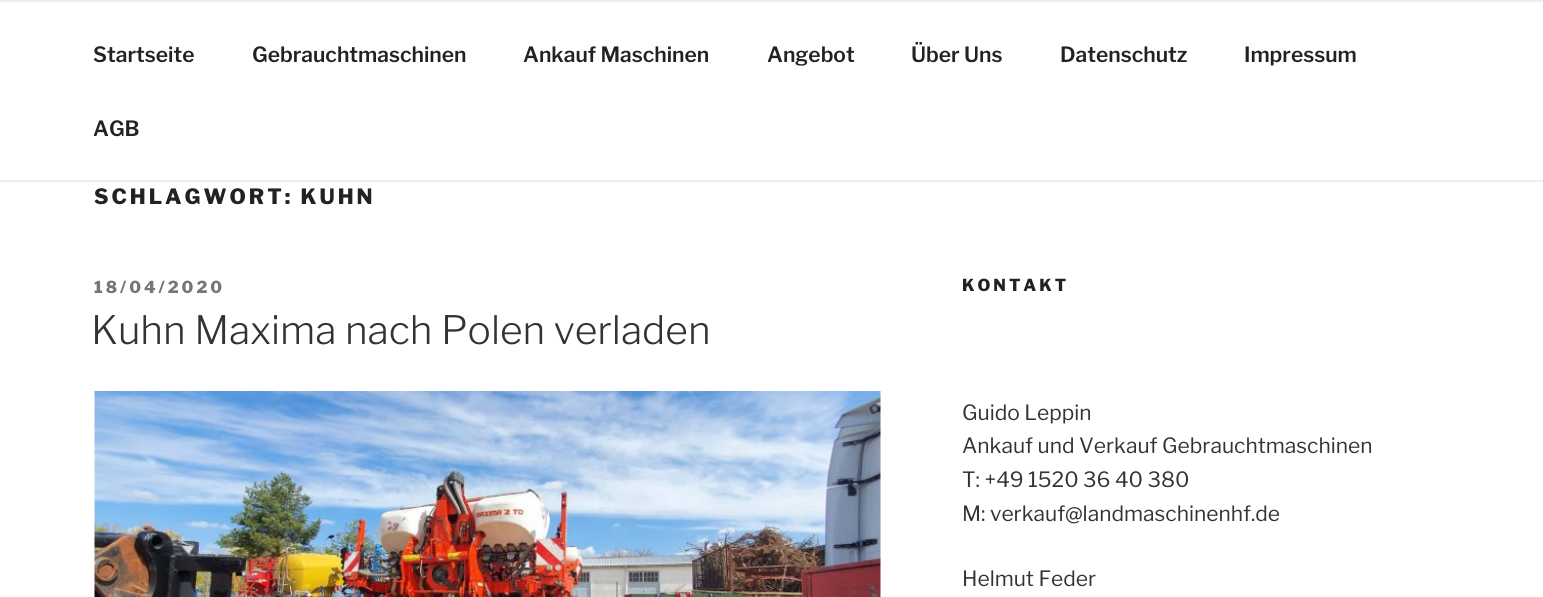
#include <cairo.h>
#include <math.h>
#include <stddef.h>

typedef struct { double x, y; const char *s; } line_t;

static void ink(cairo_t *ctx, unsigned color) {
    cairo_set_source_rgb(ctx, (color >> 16) / 255.0, (color >> 8 & 255) / 255.0, (color & 255) / 255.0);
}

static void write_spaced(cairo_t *ctx, double x, double y, const char *s, double letter, double word) {
    cairo_move_to(ctx, x, y);
    while (*s) {
        char ch[5] = {0};
        int n = 0;
        do ch[n++] = *s++; while ((*s & 0xC0) == 0x80);
        cairo_show_text(ctx, ch);
        cairo_rel_move_to(ctx, letter + word * (*ch == ' '), 0);
    }
}

static void paste(cairo_t *ctx, const char *path, double x, double y, double w, double h) {
    cairo_surface_t *image = cairo_image_surface_create_from_png(path);
    cairo_save(ctx);
    cairo_set_source_surface(ctx, image, x, y);
    cairo_rectangle(ctx, x, y, w, h);
    cairo_fill(ctx);
    cairo_restore(ctx);
    cairo_surface_destroy(image);
}

int main(void) {
    cairo_surface_t *surface = cairo_image_surface_create(CAIRO_FORMAT_RGB24, 1543, 597);
    cairo_t *ctx = cairo_create(surface);
    cairo_font_options_t *options = cairo_font_options_create();
    cairo_font_options_set_hint_metrics(options, CAIRO_HINT_METRICS_OFF);
    cairo_font_options_set_hint_style(options, CAIRO_HINT_STYLE_NONE);
    cairo_set_font_options(ctx, options);
    cairo_set_miter_limit(ctx, 4);
    ink(ctx, 0xFFFFFF);
    cairo_paint(ctx);
    ink(ctx, 0xEEEEEE);
    cairo_rectangle(ctx, 0, 0, 1543, 2);
    cairo_fill(ctx);
    cairo_rectangle(ctx, 0, 180, 1543, 2);
    cairo_fill(ctx);
    cairo_select_font_face(ctx, "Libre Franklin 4 Thin", CAIRO_FONT_SLANT_NORMAL, CAIRO_FONT_WEIGHT_NORMAL);
    cairo_set_font_size(ctx, 21);
    ink(ctx, 0x222222);
    {
        static const line_t items[] = {
            {93, 62, "Startseite"},
            {252, 62, "Gebrauchtmaschinen"},
            {523, 62, "Ankauf Maschinen"},
            {767, 62, "Angebot"},
            {911, 62, "Über Uns"},
            {1060, 62, "Datenschutz"},
            {1244, 62, "Impressum"},
            {93, 136, "AGB"},
        };
        for (size_t i = 0; i < sizeof items / sizeof *items; i++) {
            cairo_move_to(ctx, items[i].x, items[i].y);
            cairo_show_text(ctx, items[i].s);
        }
    }
    cairo_select_font_face(ctx, "Libre Franklin Thin", CAIRO_FONT_SLANT_NORMAL, CAIRO_FONT_WEIGHT_NORMAL);
    write_spaced(ctx, 94, 204, "SCHLAGWORT: KUHN", 3, 0);
    cairo_set_font_size(ctx, 16.5);
    ink(ctx, 0x767676);
    write_spaced(ctx, 94, 293, "18/04/2020", 3, 0);
    cairo_select_font_face(ctx, "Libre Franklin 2 Thin", CAIRO_FONT_SLANT_NORMAL, CAIRO_FONT_WEIGHT_NORMAL);
    cairo_set_font_size(ctx, 39);
    ink(ctx, 0x333333);
    cairo_move_to(ctx, 91, 344);
    cairo_show_text(ctx, "Kuhn Maxima nach Polen verladen");
    paste(ctx, "media/1.png", 94, 391, 787, 206);
    cairo_select_font_face(ctx, "Libre Franklin Thin", CAIRO_FONT_SLANT_NORMAL, CAIRO_FONT_WEIGHT_NORMAL);
    cairo_set_font_size(ctx, 16.5);
    ink(ctx, 0x222222);
    write_spaced(ctx, 962, 291, "KONTAKT", 3, 0);
    cairo_select_font_face(ctx, "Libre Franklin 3 Thin", CAIRO_FONT_SLANT_NORMAL, CAIRO_FONT_WEIGHT_NORMAL);
    cairo_set_font_size(ctx, 21);
    ink(ctx, 0x333333);
    {
        static const line_t items[] = {
            {962, 420, "Guido Leppin"},
            {962, 453, "Ankauf und Verkauf Gebrauchtmaschinen"},
            {962, 487, "T: +49 1520 36 40 380"},
            {962, 521, "M: verkauf@landmaschinenhf.de"},
            {962, 586, "Helmut Feder"},
        };
        for (size_t i = 0; i < sizeof items / sizeof *items; i++) {
            cairo_move_to(ctx, items[i].x, items[i].y);
            cairo_show_text(ctx, items[i].s);
        }
    }
    cairo_surface_write_to_png(surface, "image.png");
    cairo_font_options_destroy(options);
    cairo_destroy(ctx);
    cairo_surface_destroy(surface);
    return 0;
}
